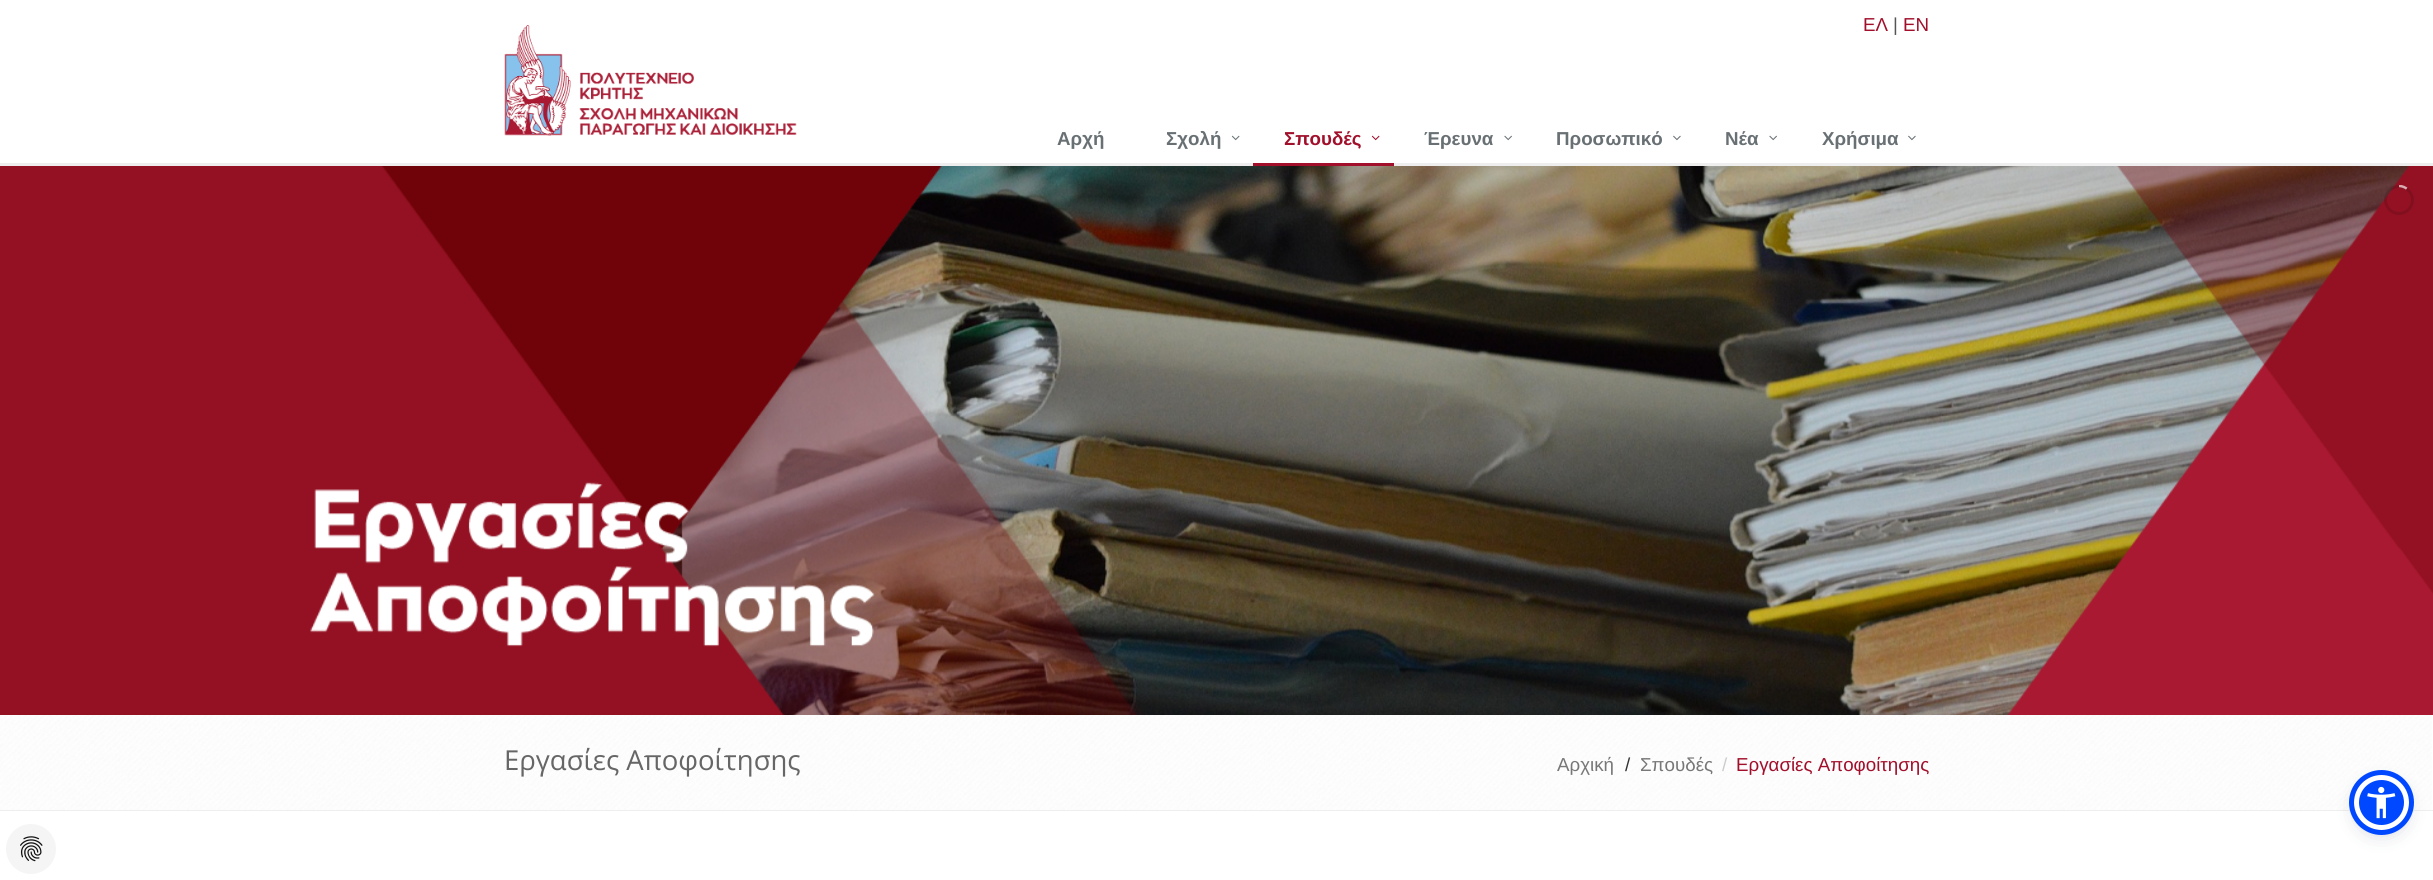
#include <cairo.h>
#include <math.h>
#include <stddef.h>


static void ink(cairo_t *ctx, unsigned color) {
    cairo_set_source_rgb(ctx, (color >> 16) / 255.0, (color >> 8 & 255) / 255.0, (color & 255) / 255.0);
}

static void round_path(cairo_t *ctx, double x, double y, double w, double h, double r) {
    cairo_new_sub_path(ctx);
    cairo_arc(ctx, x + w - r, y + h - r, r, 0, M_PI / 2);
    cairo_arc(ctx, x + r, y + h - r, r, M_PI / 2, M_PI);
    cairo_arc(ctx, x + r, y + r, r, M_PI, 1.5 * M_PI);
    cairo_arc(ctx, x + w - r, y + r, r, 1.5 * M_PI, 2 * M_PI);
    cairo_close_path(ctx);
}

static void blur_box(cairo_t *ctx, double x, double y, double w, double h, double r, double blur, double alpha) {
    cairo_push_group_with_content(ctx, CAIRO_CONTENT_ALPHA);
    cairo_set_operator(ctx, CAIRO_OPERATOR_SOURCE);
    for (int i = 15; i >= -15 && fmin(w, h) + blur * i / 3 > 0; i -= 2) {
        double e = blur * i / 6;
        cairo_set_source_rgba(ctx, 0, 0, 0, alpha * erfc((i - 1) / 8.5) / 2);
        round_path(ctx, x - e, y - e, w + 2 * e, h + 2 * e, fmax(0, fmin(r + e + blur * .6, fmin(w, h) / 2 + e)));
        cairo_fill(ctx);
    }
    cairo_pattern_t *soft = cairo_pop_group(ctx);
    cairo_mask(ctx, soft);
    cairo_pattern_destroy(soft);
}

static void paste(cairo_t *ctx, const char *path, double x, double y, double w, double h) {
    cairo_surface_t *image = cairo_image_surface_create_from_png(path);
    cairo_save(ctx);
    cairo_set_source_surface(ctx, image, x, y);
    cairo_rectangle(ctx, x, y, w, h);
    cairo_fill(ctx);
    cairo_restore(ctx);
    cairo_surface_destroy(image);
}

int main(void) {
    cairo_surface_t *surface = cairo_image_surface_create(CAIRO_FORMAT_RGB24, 2433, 880);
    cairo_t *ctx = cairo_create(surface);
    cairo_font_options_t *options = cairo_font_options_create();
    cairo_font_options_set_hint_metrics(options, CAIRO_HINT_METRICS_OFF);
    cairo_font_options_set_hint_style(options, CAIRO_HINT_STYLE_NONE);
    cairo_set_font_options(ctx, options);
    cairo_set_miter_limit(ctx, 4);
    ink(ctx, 0xFFFFFF);
    cairo_paint(ctx);
    ink(ctx, 0xEEEEEE);
    cairo_rectangle(ctx, 0, 163, 2433, 3);
    cairo_fill(ctx);
    paste(ctx, "media/1.png", 504, 25, 293, 111);
    cairo_select_font_face(ctx, "Liberation Sans", CAIRO_FONT_SLANT_NORMAL, CAIRO_FONT_WEIGHT_NORMAL);
    cairo_set_font_size(ctx, 18.75);
    ink(ctx, 0xA10F2B);
    cairo_move_to(ctx, 1863, 31);
    cairo_show_text(ctx, "ΕΛ");
    ink(ctx, 0x555555);
    cairo_move_to(ctx, 1893, 31);
    cairo_show_text(ctx, "|");
    ink(ctx, 0xA10F2B);
    cairo_move_to(ctx, 1903, 31);
    cairo_show_text(ctx, "EN");
    cairo_select_font_face(ctx, "Liberation Sans", CAIRO_FONT_SLANT_NORMAL, CAIRO_FONT_WEIGHT_BOLD);
    ink(ctx, 0x687074);
    cairo_move_to(ctx, 1057, 145);
    cairo_show_text(ctx, "Αρχή");
    cairo_move_to(ctx, 1166, 145);
    cairo_show_text(ctx, "Σχολή");
    paste(ctx, "media/2.png", 1231, 135, 9, 6);
    ink(ctx, 0xA10F2B);
    cairo_rectangle(ctx, 1253, 163, 141, 3);
    cairo_fill(ctx);
    cairo_move_to(ctx, 1284, 145);
    cairo_show_text(ctx, "Σπουδές");
    paste(ctx, "media/3.png", 1371, 135, 9, 6);
    ink(ctx, 0x687074);
    cairo_move_to(ctx, 1424, 145);
    cairo_show_text(ctx, "Έρευνα");
    paste(ctx, "media/4.png", 1504, 135, 8, 6);
    cairo_move_to(ctx, 1556, 145);
    cairo_show_text(ctx, "Προσωπικό");
    paste(ctx, "media/5.png", 1673, 135, 8, 6);
    cairo_move_to(ctx, 1725, 145);
    cairo_show_text(ctx, "Νέα");
    paste(ctx, "media/4.png", 1769, 135, 8, 6);
    cairo_move_to(ctx, 1822, 145);
    cairo_show_text(ctx, "Χρήσιμα");
    paste(ctx, "media/5.png", 1908, 135, 8, 6);
    paste(ctx, "media/6.png", 0, 166, 2433, 549);
    cairo_arc(ctx, 2399, 200, 13.5, 0, 2 * M_PI);
    cairo_set_source_rgba(ctx, 0, 0, 0, 0.13);
    cairo_set_line_width(ctx, 3);
    cairo_stroke(ctx);
    cairo_save(ctx);
    cairo_rectangle(ctx, 2399, 185, 15, 30);
    cairo_clip(ctx);
    cairo_new_path(ctx);
    cairo_move_to(ctx, 2395, 179);
    cairo_line_to(ctx, 2407.5, 187.5);
    cairo_line_to(ctx, 2390, 212.5);
    cairo_line_to(ctx, 2378, 203.5);
    cairo_close_path(ctx);
    cairo_clip(ctx);
    cairo_new_path(ctx);
    cairo_move_to(ctx, 2406.5, 188.5);
    cairo_curve_to(ctx, 2421.5, 199, 2405.5, 221.5, 2391, 211.5);
    cairo_curve_to(ctx, 2376, 201, 2392, 178.5, 2406.5, 188.5);
    cairo_close_path(ctx);
    ink(ctx, 0xDAACB2);
    cairo_set_line_width(ctx, 2.5);
    cairo_stroke(ctx);
    cairo_restore(ctx);
    paste(ctx, "media/7.png", 0, 715, 2432, 95);
    ink(ctx, 0xEEEEEE);
    cairo_rectangle(ctx, 0, 810, 2433, 1);
    cairo_fill(ctx);
    cairo_select_font_face(ctx, "Open Sans", CAIRO_FONT_SLANT_NORMAL, CAIRO_FONT_WEIGHT_NORMAL);
    cairo_set_font_size(ctx, 27.5);
    ink(ctx, 0x666666);
    cairo_move_to(ctx, 504, 770);
    cairo_show_text(ctx, "Εργασίες Αποφοίτησης");
    cairo_select_font_face(ctx, "Liberation Sans", CAIRO_FONT_SLANT_NORMAL, CAIRO_FONT_WEIGHT_NORMAL);
    cairo_set_font_size(ctx, 18.75);
    ink(ctx, 0x777777);
    cairo_move_to(ctx, 1557, 771);
    cairo_show_text(ctx, "Αρχική");
    ink(ctx, 0x333333);
    cairo_move_to(ctx, 1625, 771);
    cairo_show_text(ctx, "/");
    ink(ctx, 0x777777);
    cairo_move_to(ctx, 1640, 771);
    cairo_show_text(ctx, "Σπουδές");
    ink(ctx, 0xCCCCCC);
    cairo_move_to(ctx, 1722, 771);
    cairo_show_text(ctx, "/");
    ink(ctx, 0xA10F2B);
    cairo_move_to(ctx, 1736, 771);
    cairo_show_text(ctx, "Εργασίες Αποφοίτησης");
    ink(ctx, 0xF5F5F5);
    cairo_new_path(ctx);
    cairo_arc(ctx, 31, 849, 25, 0, 2 * M_PI);
    cairo_fill(ctx);
    paste(ctx, "media/8.png", 20, 836, 23, 26);
    ink(ctx, 0x5D6494);
    blur_box(ctx, 2354, 778, 55, 55, 27.5, 2.5, 0.2);
    ink(ctx, 0x252C61);
    blur_box(ctx, 2354, 781, 55, 55, 27.5, 9.5, 0.15);
    ink(ctx, 0x0048FF);
    cairo_arc(ctx, 2381.5, 802.5, 25, 0, 2 * M_PI);
    cairo_fill_preserve(ctx);
    ink(ctx, 0xFFFFFF);
    cairo_set_line_width(ctx, 5);
    cairo_stroke(ctx);
    cairo_arc(ctx, 2381.5, 802.5, 30, 0, 2 * M_PI);
    ink(ctx, 0x0048FF);
    cairo_stroke(ctx);
    paste(ctx, "media/9.png", 2367, 786, 29, 33);
    cairo_surface_write_to_png(surface, "image.png");
    cairo_font_options_destroy(options);
    cairo_destroy(ctx);
    cairo_surface_destroy(surface);
    return 0;
}
